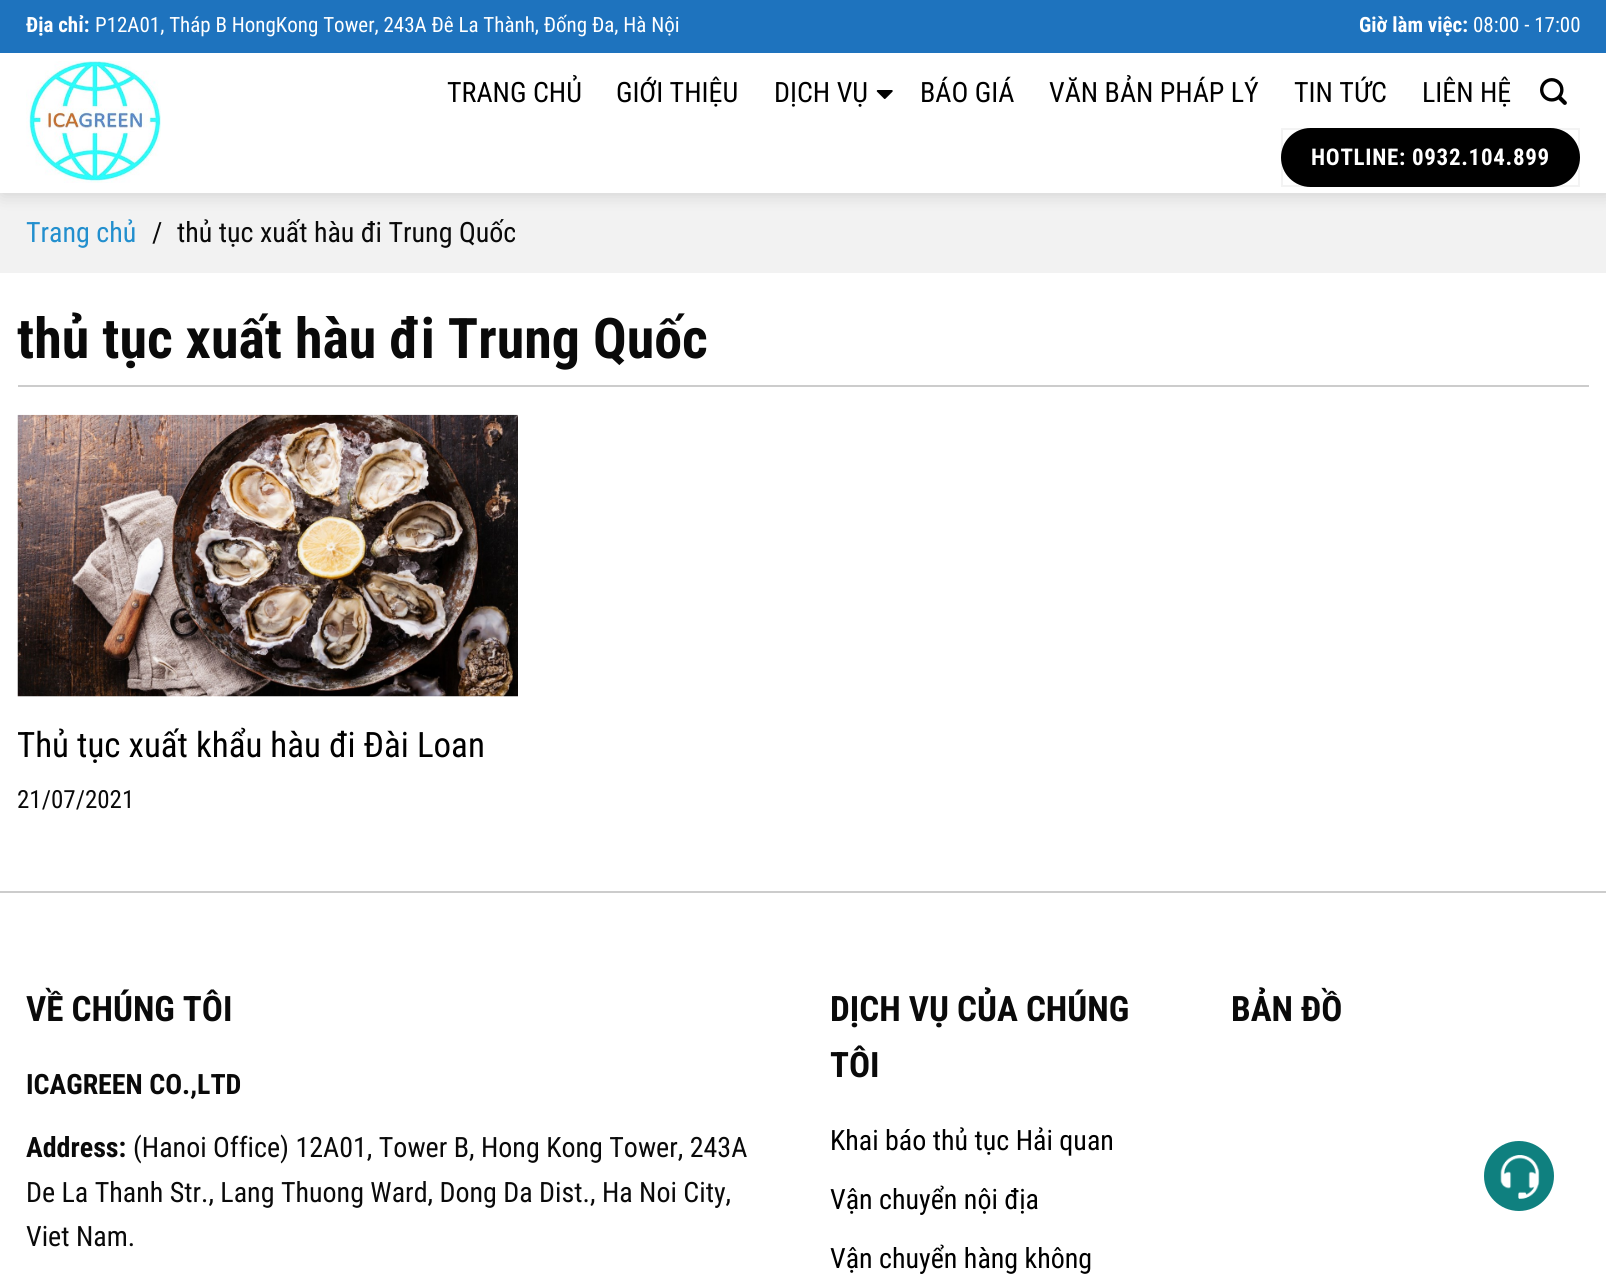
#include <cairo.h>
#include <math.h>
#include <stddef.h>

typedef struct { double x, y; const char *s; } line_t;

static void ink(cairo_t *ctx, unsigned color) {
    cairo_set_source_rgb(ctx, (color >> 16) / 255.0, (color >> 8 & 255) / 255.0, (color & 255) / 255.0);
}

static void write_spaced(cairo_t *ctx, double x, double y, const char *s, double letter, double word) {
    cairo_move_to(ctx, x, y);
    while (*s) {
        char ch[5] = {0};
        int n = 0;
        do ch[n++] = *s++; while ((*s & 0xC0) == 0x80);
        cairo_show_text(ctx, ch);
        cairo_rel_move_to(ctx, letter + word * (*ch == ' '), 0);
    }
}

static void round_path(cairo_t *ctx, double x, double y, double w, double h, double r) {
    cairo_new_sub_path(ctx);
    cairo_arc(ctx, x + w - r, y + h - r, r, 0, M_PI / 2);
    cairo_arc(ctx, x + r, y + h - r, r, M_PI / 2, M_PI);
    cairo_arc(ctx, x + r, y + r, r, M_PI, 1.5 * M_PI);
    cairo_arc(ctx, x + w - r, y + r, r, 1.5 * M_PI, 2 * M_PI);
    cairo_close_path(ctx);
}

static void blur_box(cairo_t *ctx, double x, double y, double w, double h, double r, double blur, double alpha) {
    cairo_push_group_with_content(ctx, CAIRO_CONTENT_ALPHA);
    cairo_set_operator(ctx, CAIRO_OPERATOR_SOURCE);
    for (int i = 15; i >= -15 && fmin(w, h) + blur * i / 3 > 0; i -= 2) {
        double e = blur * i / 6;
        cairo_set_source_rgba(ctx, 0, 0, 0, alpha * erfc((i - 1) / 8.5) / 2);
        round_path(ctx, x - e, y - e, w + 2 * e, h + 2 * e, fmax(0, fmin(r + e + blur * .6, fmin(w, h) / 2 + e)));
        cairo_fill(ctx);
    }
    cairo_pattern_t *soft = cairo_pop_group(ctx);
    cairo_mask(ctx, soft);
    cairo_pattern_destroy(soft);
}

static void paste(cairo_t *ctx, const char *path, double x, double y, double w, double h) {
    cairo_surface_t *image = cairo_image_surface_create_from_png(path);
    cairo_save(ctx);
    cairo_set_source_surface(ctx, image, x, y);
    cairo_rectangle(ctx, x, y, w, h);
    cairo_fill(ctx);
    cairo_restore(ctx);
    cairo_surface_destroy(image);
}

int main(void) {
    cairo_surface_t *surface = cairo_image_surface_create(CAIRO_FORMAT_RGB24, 1606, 1281);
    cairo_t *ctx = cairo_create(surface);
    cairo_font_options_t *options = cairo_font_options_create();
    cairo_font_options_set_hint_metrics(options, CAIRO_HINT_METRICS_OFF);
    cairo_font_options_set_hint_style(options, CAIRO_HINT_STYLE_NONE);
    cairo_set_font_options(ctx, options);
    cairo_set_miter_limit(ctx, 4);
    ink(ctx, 0xFFFFFF);
    cairo_paint(ctx);
    ink(ctx, 0xF2F2F2);
    cairo_rectangle(ctx, 0, 193, 1606, 80);
    cairo_fill(ctx);
    ink(ctx, 0x000000);
    blur_box(ctx, 2, 2, 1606, 192, 0, 9, 0.15);
    ink(ctx, 0x1E73BE);
    cairo_rectangle(ctx, 0, 0, 1606, 53);
    cairo_fill(ctx);
    cairo_select_font_face(ctx, "Roboto Condensed", CAIRO_FONT_SLANT_NORMAL, CAIRO_FONT_WEIGHT_BOLD);
    cairo_set_font_size(ctx, 21);
    ink(ctx, 0xFFFFFF);
    cairo_move_to(ctx, 26, 32);
    cairo_show_text(ctx, "Địa chỉ:");
    cairo_select_font_face(ctx, "Roboto Condensed", CAIRO_FONT_SLANT_NORMAL, CAIRO_FONT_WEIGHT_NORMAL);
    cairo_move_to(ctx, 95, 32);
    cairo_show_text(ctx, "P12A01, Tháp B HongKong Tower, 243A Đê La Thành, Đống Đa, Hà Nội");
    cairo_select_font_face(ctx, "Roboto Condensed", CAIRO_FONT_SLANT_NORMAL, CAIRO_FONT_WEIGHT_BOLD);
    cairo_move_to(ctx, 1359, 32);
    cairo_show_text(ctx, "Giờ làm việc:");
    cairo_select_font_face(ctx, "Roboto Condensed", CAIRO_FONT_SLANT_NORMAL, CAIRO_FONT_WEIGHT_NORMAL);
    cairo_move_to(ctx, 1473, 32);
    cairo_show_text(ctx, "08:00 - 17:00");
    cairo_rectangle(ctx, 0, 53, 1606, 140);
    cairo_fill(ctx);
    paste(ctx, "media/1.png", 26, 61, 135, 122);
    cairo_set_font_size(ctx, 28);
    ink(ctx, 0x000000);
    {
        static const line_t items[] = {
            {447, 102, "TRANG CHỦ"},
            {616, 102, "GIỚI THIỆU"},
            {774, 102, "DỊCH VỤ"},
        };
        for (size_t i = 0; i < sizeof items / sizeof *items; i++) {
            cairo_move_to(ctx, items[i].x, items[i].y);
            cairo_show_text(ctx, items[i].s);
        }
    }
    paste(ctx, "media/2.png", 876, 90, 17, 9);
    {
        static const line_t items[] = {
            {920, 102, "BÁO GIÁ"},
            {1049, 102, "VĂN BẢN PHÁP LÝ"},
            {1294, 102, "TIN TỨC"},
            {1422, 102, "LIÊN HỆ"},
        };
        for (size_t i = 0; i < sizeof items / sizeof *items; i++) {
            cairo_move_to(ctx, items[i].x, items[i].y);
            cairo_show_text(ctx, items[i].s);
        }
    }
    paste(ctx, "media/3.png", 1540, 78, 27, 27);
    round_path(ctx, 1281, 128, 299, 59, 29.5);
    cairo_fill(ctx);
    cairo_rectangle(ctx, 1282, 129, 297, 57);
    cairo_set_source_rgba(ctx, 0, 0, 0, 0.05);
    cairo_stroke(ctx);
    cairo_select_font_face(ctx, "Roboto Condensed", CAIRO_FONT_SLANT_NORMAL, CAIRO_FONT_WEIGHT_BOLD);
    cairo_set_font_size(ctx, 23);
    ink(ctx, 0xFFFFFF);
    write_spaced(ctx, 1311, 165, "HOTLINE: 0932.104.899", 0.7, 0);
    cairo_select_font_face(ctx, "Roboto Condensed", CAIRO_FONT_SLANT_NORMAL, CAIRO_FONT_WEIGHT_NORMAL);
    cairo_set_font_size(ctx, 28);
    ink(ctx, 0x228FCE);
    cairo_move_to(ctx, 26, 242);
    cairo_show_text(ctx, "Trang chủ");
    ink(ctx, 0x0A0A0A);
    cairo_move_to(ctx, 152, 242);
    cairo_show_text(ctx, "/");
    cairo_move_to(ctx, 177, 242);
    cairo_show_text(ctx, "thủ tục xuất hàu đi Trung Quốc");
    ink(ctx, 0xCCCCCC);
    cairo_rectangle(ctx, 18, 385, 1571, 2);
    cairo_fill(ctx);
    cairo_select_font_face(ctx, "Roboto Condensed", CAIRO_FONT_SLANT_NORMAL, CAIRO_FONT_WEIGHT_BOLD);
    cairo_set_font_size(ctx, 56);
    ink(ctx, 0x0A0A0A);
    cairo_move_to(ctx, 17, 358);
    cairo_show_text(ctx, "thủ tục xuất hàu đi Trung Quốc");
    paste(ctx, "media/4.png", 17, 414, 501, 283);
    cairo_select_font_face(ctx, "Roboto Condensed", CAIRO_FONT_SLANT_NORMAL, CAIRO_FONT_WEIGHT_NORMAL);
    cairo_set_font_size(ctx, 35);
    ink(ctx, 0x000000);
    cairo_move_to(ctx, 17, 757);
    cairo_show_text(ctx, "Thủ tục xuất khẩu hàu đi Đài Loan");
    cairo_set_font_size(ctx, 25);
    ink(ctx, 0x0A0A0A);
    cairo_move_to(ctx, 17, 808);
    cairo_show_text(ctx, "21/07/2021");
    ink(ctx, 0xCCCCCC);
    cairo_rectangle(ctx, 0, 891, 1606, 2);
    cairo_fill(ctx);
    cairo_select_font_face(ctx, "Roboto Condensed", CAIRO_FONT_SLANT_NORMAL, CAIRO_FONT_WEIGHT_BOLD);
    cairo_set_font_size(ctx, 35);
    ink(ctx, 0x0A0A0A);
    cairo_move_to(ctx, 26, 1021);
    cairo_show_text(ctx, "VỀ CHÚNG TÔI");
    cairo_set_font_size(ctx, 28);
    cairo_move_to(ctx, 26, 1094);
    cairo_show_text(ctx, "ICAGREEN CO.,LTD");
    cairo_move_to(ctx, 26, 1157);
    cairo_show_text(ctx, "Address:");
    cairo_select_font_face(ctx, "Roboto Condensed", CAIRO_FONT_SLANT_NORMAL, CAIRO_FONT_WEIGHT_NORMAL);
    {
        static const line_t items[] = {
            {133, 1157, "(Hanoi Office) 12A01, Tower B, Hong Kong Tower, 243A"},
            {26, 1202, "De La Thanh Str., Lang Thuong Ward, Dong Da Dist., Ha Noi City,"},
            {26, 1246, "Viet Nam."},
        };
        for (size_t i = 0; i < sizeof items / sizeof *items; i++) {
            cairo_move_to(ctx, items[i].x, items[i].y);
            cairo_show_text(ctx, items[i].s);
        }
    }
    cairo_select_font_face(ctx, "Roboto Condensed", CAIRO_FONT_SLANT_NORMAL, CAIRO_FONT_WEIGHT_BOLD);
    cairo_set_font_size(ctx, 35);
    cairo_move_to(ctx, 830, 1021);
    cairo_show_text(ctx, "DỊCH VỤ CỦA CHÚNG");
    cairo_move_to(ctx, 830, 1077);
    cairo_show_text(ctx, "TÔI");
    cairo_select_font_face(ctx, "Roboto Condensed", CAIRO_FONT_SLANT_NORMAL, CAIRO_FONT_WEIGHT_NORMAL);
    cairo_set_font_size(ctx, 28);
    ink(ctx, 0x000000);
    {
        static const line_t items[] = {
            {830, 1150, "Khai báo thủ tục Hải quan"},
            {830, 1209, "Vận chuyển nội địa"},
            {830, 1268, "Vận chuyển hàng không"},
        };
        for (size_t i = 0; i < sizeof items / sizeof *items; i++) {
            cairo_move_to(ctx, items[i].x, items[i].y);
            cairo_show_text(ctx, items[i].s);
        }
    }
    cairo_select_font_face(ctx, "Roboto Condensed", CAIRO_FONT_SLANT_NORMAL, CAIRO_FONT_WEIGHT_BOLD);
    cairo_set_font_size(ctx, 35);
    ink(ctx, 0x0A0A0A);
    cairo_move_to(ctx, 1231, 1021);
    cairo_show_text(ctx, "BẢN ĐỒ");
    ink(ctx, 0x0F807F);
    cairo_new_path(ctx);
    cairo_arc(ctx, 1519, 1176, 35, 0, 2 * M_PI);
    cairo_fill(ctx);
    paste(ctx, "media/5.png", 1500, 1155, 40, 44);
    cairo_surface_write_to_png(surface, "image.png");
    cairo_font_options_destroy(options);
    cairo_destroy(ctx);
    cairo_surface_destroy(surface);
    return 0;
}
